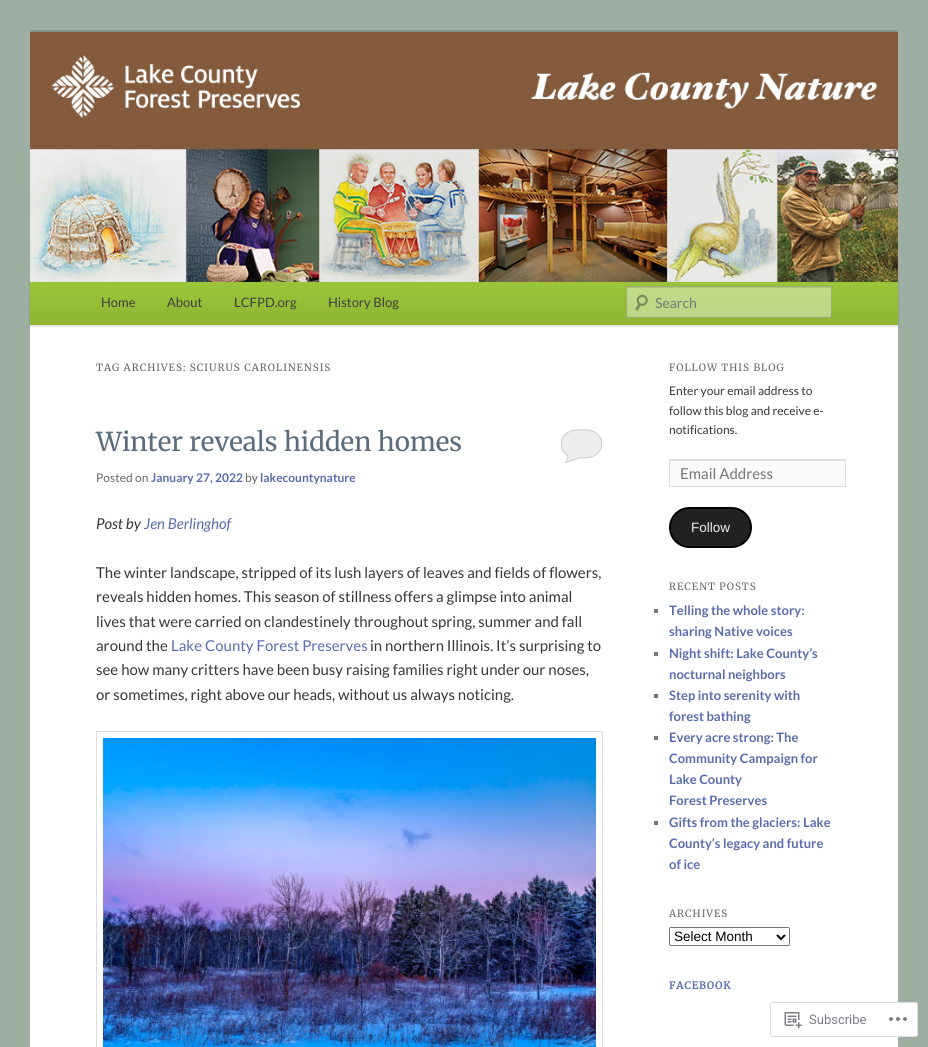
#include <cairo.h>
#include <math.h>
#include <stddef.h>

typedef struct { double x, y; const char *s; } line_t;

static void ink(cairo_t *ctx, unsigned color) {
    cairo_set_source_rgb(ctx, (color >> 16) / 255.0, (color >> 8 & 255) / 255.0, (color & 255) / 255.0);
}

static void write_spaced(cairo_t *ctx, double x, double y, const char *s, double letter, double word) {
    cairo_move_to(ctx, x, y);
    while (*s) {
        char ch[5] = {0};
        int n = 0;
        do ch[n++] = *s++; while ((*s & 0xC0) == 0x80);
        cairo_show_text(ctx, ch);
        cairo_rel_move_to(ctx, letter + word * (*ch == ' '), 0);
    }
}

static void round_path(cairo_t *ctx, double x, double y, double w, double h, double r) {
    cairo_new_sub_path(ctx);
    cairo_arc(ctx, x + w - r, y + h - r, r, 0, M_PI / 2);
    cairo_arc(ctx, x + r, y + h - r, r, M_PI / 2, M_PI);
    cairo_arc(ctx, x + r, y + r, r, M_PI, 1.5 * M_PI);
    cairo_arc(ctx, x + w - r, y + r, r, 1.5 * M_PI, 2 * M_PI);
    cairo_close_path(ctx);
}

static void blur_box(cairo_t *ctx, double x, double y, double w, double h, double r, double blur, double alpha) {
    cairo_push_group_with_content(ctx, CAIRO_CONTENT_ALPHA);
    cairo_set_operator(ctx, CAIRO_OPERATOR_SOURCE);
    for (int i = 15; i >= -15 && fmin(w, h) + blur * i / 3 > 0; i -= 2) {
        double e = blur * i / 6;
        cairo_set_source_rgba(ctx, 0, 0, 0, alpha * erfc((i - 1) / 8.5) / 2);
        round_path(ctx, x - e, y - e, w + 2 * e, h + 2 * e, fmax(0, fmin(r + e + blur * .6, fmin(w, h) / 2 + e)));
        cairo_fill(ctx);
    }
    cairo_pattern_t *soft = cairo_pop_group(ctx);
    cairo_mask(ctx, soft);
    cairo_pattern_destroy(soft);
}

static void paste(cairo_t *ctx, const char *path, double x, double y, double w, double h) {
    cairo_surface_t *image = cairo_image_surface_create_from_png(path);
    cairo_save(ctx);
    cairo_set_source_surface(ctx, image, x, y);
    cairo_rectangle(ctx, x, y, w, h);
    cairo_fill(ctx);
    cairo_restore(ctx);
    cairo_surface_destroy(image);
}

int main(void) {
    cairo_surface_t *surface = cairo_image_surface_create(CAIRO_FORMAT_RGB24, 928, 1047);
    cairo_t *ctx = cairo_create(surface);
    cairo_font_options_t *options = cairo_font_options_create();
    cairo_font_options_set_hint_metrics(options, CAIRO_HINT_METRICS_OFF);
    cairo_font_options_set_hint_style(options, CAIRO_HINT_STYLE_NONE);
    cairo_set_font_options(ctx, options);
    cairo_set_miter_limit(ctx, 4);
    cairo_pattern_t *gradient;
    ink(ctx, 0x9EAEA2);
    cairo_paint(ctx);
    ink(ctx, 0xFFFFFF);
    cairo_rectangle(ctx, 30, 325, 868, 722);
    cairo_fill(ctx);
    ink(ctx, 0x819687);
    cairo_rectangle(ctx, 30, 30, 868, 2);
    cairo_fill(ctx);
    ink(ctx, 0x000000);
    blur_box(ctx, 30, 282, 868, 44, 0, 1, 0.2);
    paste(ctx, "media/1.png", 30, 32, 868, 250);
    gradient = cairo_pattern_create_linear(464, 281, 464, 325);
    cairo_pattern_add_color_stop_rgba(gradient, 0, 0.608, 0.773, 0.224, 1);
    cairo_pattern_add_color_stop_rgba(gradient, 1, 0.561, 0.71, 0.204, 1);
    cairo_set_source(ctx, gradient);
    cairo_pattern_destroy(gradient);
    cairo_rectangle(ctx, 30, 282, 868, 43);
    cairo_fill(ctx);
    cairo_select_font_face(ctx, "Lato", CAIRO_FONT_SLANT_NORMAL, CAIRO_FONT_WEIGHT_NORMAL);
    cairo_set_font_size(ctx, 13);
    ink(ctx, 0x3F3F3F);
    {
        static const line_t items[] = {
            {101, 307, "Home"},
            {167, 307, "About"},
            {234, 307, "LCFPD.org"},
            {328, 307, "History Blog"},
        };
        for (size_t i = 0; i < sizeof items / sizeof *items; i++) {
            cairo_move_to(ctx, items[i].x, items[i].y);
            cairo_show_text(ctx, items[i].s);
        }
    }
    cairo_set_source_rgba(ctx, 1, 1, 1, 0.4);
    round_path(ctx, 626, 286, 206, 32, 2);
    cairo_fill(ctx);
    paste(ctx, "media/2.png", 635, 294, 13, 17);
    ink(ctx, 0xAEC57A);
    cairo_new_path(ctx);
    cairo_move_to(ctx, 628, 288);
    cairo_line_to(ctx, 831, 288);
    cairo_line_to(ctx, 831, 289);
    cairo_line_to(ctx, 831, 287);
    cairo_line_to(ctx, 830, 287);
    cairo_line_to(ctx, 628, 287);
    cairo_curve_to(ctx, 627, 287, 627, 288, 627, 289);
    cairo_curve_to(ctx, 627, 288, 627, 288, 628, 288);
    cairo_close_path(ctx);
    cairo_fill(ctx);
    round_path(ctx, 626.5, 286.5, 205, 31, 1.5);
    cairo_set_source_rgba(ctx, 0, 0, 0, 0.2);
    cairo_set_line_width(ctx, 1);
    cairo_stroke(ctx);
    cairo_set_font_size(ctx, 14);
    ink(ctx, 0x757575);
    cairo_move_to(ctx, 655, 308);
    cairo_show_text(ctx, "Search");
    cairo_select_font_face(ctx, "Merriweather Light", CAIRO_FONT_SLANT_NORMAL, CAIRO_FONT_WEIGHT_NORMAL);
    cairo_set_font_size(ctx, 10);
    ink(ctx, 0x666666);
    write_spaced(ctx, 96, 371, "TAG ARCHIVES: SCIURUS CAROLINENSIS", 1, 0);
    cairo_set_font_size(ctx, 26);
    ink(ctx, 0x5B6C7C);
    cairo_move_to(ctx, 96, 451);
    cairo_show_text(ctx, "Winter reveals hidden homes");
    ink(ctx, 0xEEEEEE);
    cairo_rectangle(ctx, 561, 429, 41, 34);
    cairo_fill(ctx);
    paste(ctx, "media/3.png", 560, 427, 43, 36);
    cairo_select_font_face(ctx, "Lato", CAIRO_FONT_SLANT_NORMAL, CAIRO_FONT_WEIGHT_NORMAL);
    cairo_set_font_size(ctx, 12);
    ink(ctx, 0x666666);
    cairo_move_to(ctx, 96, 482);
    cairo_show_text(ctx, "Posted on");
    cairo_select_font_face(ctx, "Lato", CAIRO_FONT_SLANT_NORMAL, CAIRO_FONT_WEIGHT_BOLD);
    ink(ctx, 0x596CAF);
    cairo_move_to(ctx, 151, 482);
    cairo_show_text(ctx, "January 27, 2022");
    cairo_select_font_face(ctx, "Lato", CAIRO_FONT_SLANT_NORMAL, CAIRO_FONT_WEIGHT_NORMAL);
    ink(ctx, 0x666666);
    cairo_move_to(ctx, 245, 482);
    cairo_show_text(ctx, "by");
    cairo_select_font_face(ctx, "Lato", CAIRO_FONT_SLANT_NORMAL, CAIRO_FONT_WEIGHT_BOLD);
    ink(ctx, 0x596CAF);
    cairo_move_to(ctx, 260, 482);
    cairo_show_text(ctx, "lakecountynature");
    cairo_select_font_face(ctx, "Lato", CAIRO_FONT_SLANT_ITALIC, CAIRO_FONT_WEIGHT_NORMAL);
    cairo_set_font_size(ctx, 15);
    ink(ctx, 0x373737);
    cairo_move_to(ctx, 96, 529);
    cairo_show_text(ctx, "Post by");
    ink(ctx, 0x596CAF);
    cairo_move_to(ctx, 144, 529);
    cairo_show_text(ctx, "Jen Berlinghof");
    cairo_select_font_face(ctx, "Lato", CAIRO_FONT_SLANT_NORMAL, CAIRO_FONT_WEIGHT_NORMAL);
    ink(ctx, 0x373737);
    {
        static const line_t items[] = {
            {96, 578, "The winter landscape, stripped of its lush layers of leaves and fields of flowers,"},
            {96, 602, "reveals hidden homes. This season of stillness offers a glimpse into animal"},
            {96, 627, "lives that were carried on clandestinely throughout spring, summer and fall"},
            {96, 651, "around the"},
        };
        for (size_t i = 0; i < sizeof items / sizeof *items; i++) {
            cairo_move_to(ctx, items[i].x, items[i].y);
            cairo_show_text(ctx, items[i].s);
        }
    }
    ink(ctx, 0x596CAF);
    cairo_move_to(ctx, 171, 651);
    cairo_show_text(ctx, "Lake County Forest Preserves");
    ink(ctx, 0x373737);
    {
        static const line_t items[] = {
            {370, 651, "in northern Illinois. It’s surprising to"},
            {96, 675, "see how many critters have been busy raising families right under our noses,"},
            {96, 700, "or sometimes, right above our heads, without us always noticing."},
        };
        for (size_t i = 0; i < sizeof items / sizeof *items; i++) {
            cairo_move_to(ctx, items[i].x, items[i].y);
            cairo_show_text(ctx, items[i].s);
        }
    }
    cairo_rectangle(ctx, 96.5, 731.5, 506, 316);
    ink(ctx, 0xDDDDDD);
    cairo_stroke(ctx);
    paste(ctx, "media/4.png", 103, 738, 493, 309);
    cairo_select_font_face(ctx, "Merriweather Light", CAIRO_FONT_SLANT_NORMAL, CAIRO_FONT_WEIGHT_NORMAL);
    cairo_set_font_size(ctx, 10);
    ink(ctx, 0x666666);
    write_spaced(ctx, 669, 371, "FOLLOW THIS BLOG", 1, 0);
    cairo_select_font_face(ctx, "Lato", CAIRO_FONT_SLANT_NORMAL, CAIRO_FONT_WEIGHT_NORMAL);
    cairo_set_font_size(ctx, 12);
    ink(ctx, 0x373737);
    {
        static const line_t items[] = {
            {669, 395, "Enter your email address to"},
            {669, 415, "follow this blog and receive e-"},
            {669, 434, "notifications."},
        };
        for (size_t i = 0; i < sizeof items / sizeof *items; i++) {
            cairo_move_to(ctx, items[i].x, items[i].y);
            cairo_show_text(ctx, items[i].s);
        }
    }
    ink(ctx, 0xFAFAFA);
    cairo_rectangle(ctx, 670, 461, 175, 25);
    cairo_fill(ctx);
    ink(ctx, 0xE1E1E1);
    cairo_rectangle(ctx, 670, 460, 175, 1);
    cairo_fill(ctx);
    cairo_rectangle(ctx, 669.5, 459.5, 176, 27);
    ink(ctx, 0xDDDDDD);
    cairo_stroke(ctx);
    cairo_set_font_size(ctx, 15);
    ink(ctx, 0x757575);
    cairo_move_to(ctx, 680, 479);
    cairo_show_text(ctx, "Email Address");
    ink(ctx, 0x222222);
    round_path(ctx, 670, 508, 81, 39, 19.5);
    cairo_fill_preserve(ctx);
    ink(ctx, 0x000000);
    cairo_set_line_width(ctx, 2);
    cairo_stroke(ctx);
    cairo_select_font_face(ctx, "Liberation Sans", CAIRO_FONT_SLANT_NORMAL, CAIRO_FONT_WEIGHT_NORMAL);
    cairo_set_font_size(ctx, 13.5);
    ink(ctx, 0xEEEEEE);
    cairo_move_to(ctx, 691, 532);
    cairo_show_text(ctx, "Follow");
    cairo_select_font_face(ctx, "Merriweather Light", CAIRO_FONT_SLANT_NORMAL, CAIRO_FONT_WEIGHT_NORMAL);
    cairo_set_font_size(ctx, 10);
    ink(ctx, 0x666666);
    write_spaced(ctx, 669, 590, "RECENT POSTS", 1, 0);
    ink(ctx, 0x777777);
    cairo_rectangle(ctx, 654, 609, 4, 4);
    cairo_fill(ctx);
    cairo_select_font_face(ctx, "Lato", CAIRO_FONT_SLANT_NORMAL, CAIRO_FONT_WEIGHT_BOLD);
    cairo_set_font_size(ctx, 13);
    ink(ctx, 0x596CAF);
    cairo_move_to(ctx, 669, 615);
    cairo_show_text(ctx, "Telling the whole story:");
    cairo_move_to(ctx, 669, 636);
    cairo_show_text(ctx, "sharing Native voices");
    ink(ctx, 0x777777);
    cairo_rectangle(ctx, 654, 652, 4, 4);
    cairo_fill(ctx);
    ink(ctx, 0x596CAF);
    cairo_move_to(ctx, 669, 658);
    cairo_show_text(ctx, "Night shift: Lake County’s");
    cairo_move_to(ctx, 669, 679);
    cairo_show_text(ctx, "nocturnal neighbors");
    ink(ctx, 0x777777);
    cairo_rectangle(ctx, 654, 694, 4, 4);
    cairo_fill(ctx);
    ink(ctx, 0x596CAF);
    cairo_move_to(ctx, 669, 700);
    cairo_show_text(ctx, "Step into serenity with");
    cairo_move_to(ctx, 669, 721);
    cairo_show_text(ctx, "forest bathing");
    ink(ctx, 0x777777);
    cairo_rectangle(ctx, 654, 736, 4, 4);
    cairo_fill(ctx);
    ink(ctx, 0x596CAF);
    {
        static const line_t items[] = {
            {669, 742, "Every acre strong: The"},
            {669, 763, "Community Campaign for"},
            {669, 784, "Lake County"},
            {669, 805, "Forest Preserves"},
        };
        for (size_t i = 0; i < sizeof items / sizeof *items; i++) {
            cairo_move_to(ctx, items[i].x, items[i].y);
            cairo_show_text(ctx, items[i].s);
        }
    }
    ink(ctx, 0x777777);
    cairo_rectangle(ctx, 654, 821, 4, 4);
    cairo_fill(ctx);
    ink(ctx, 0x596CAF);
    {
        static const line_t items[] = {
            {669, 827, "Gifts from the glaciers: Lake"},
            {669, 848, "County’s legacy and future"},
            {669, 869, "of ice"},
        };
        for (size_t i = 0; i < sizeof items / sizeof *items; i++) {
            cairo_move_to(ctx, items[i].x, items[i].y);
            cairo_show_text(ctx, items[i].s);
        }
    }
    cairo_select_font_face(ctx, "Merriweather Light", CAIRO_FONT_SLANT_NORMAL, CAIRO_FONT_WEIGHT_NORMAL);
    cairo_set_font_size(ctx, 10);
    ink(ctx, 0x666666);
    write_spaced(ctx, 669, 917, "ARCHIVES", 1, 0);
    round_path(ctx, 669.5, 927.5, 120, 18, 1.5);
    ink(ctx, 0x767676);
    cairo_set_line_width(ctx, 1);
    cairo_stroke(ctx);
    cairo_new_path(ctx);
    cairo_move_to(ctx, 777, 935);
    cairo_line_to(ctx, 781, 939);
    cairo_line_to(ctx, 785, 935);
    ink(ctx, 0x000000);
    cairo_set_line_width(ctx, 2);
    cairo_stroke(ctx);
    cairo_select_font_face(ctx, "Liberation Sans", CAIRO_FONT_SLANT_NORMAL, CAIRO_FONT_WEIGHT_NORMAL);
    cairo_set_font_size(ctx, 13.5);
    cairo_move_to(ctx, 674, 941);
    cairo_show_text(ctx, "Select Month");
    cairo_select_font_face(ctx, "Merriweather", CAIRO_FONT_SLANT_NORMAL, CAIRO_FONT_WEIGHT_BOLD);
    cairo_set_font_size(ctx, 10);
    ink(ctx, 0x596CAF);
    write_spaced(ctx, 669, 989, "FACEBOOK", 1, 0);
    cairo_set_source_rgba(ctx, 1, 1, 1, 0.98);
    round_path(ctx, 770, 1002, 148, 35, 3);
    cairo_fill(ctx);
    round_path(ctx, 770.5, 1002.5, 147, 34, 2.5);
    cairo_set_source_rgba(ctx, 0.863, 0.863, 0.871, 0.98);
    cairo_set_line_width(ctx, 1);
    cairo_stroke(ctx);
    paste(ctx, "media/5.png", 784, 1012, 18, 17);
    cairo_select_font_face(ctx, "Roboto", CAIRO_FONT_SLANT_NORMAL, CAIRO_FONT_WEIGHT_NORMAL);
    cairo_set_font_size(ctx, 13);
    ink(ctx, 0x7B7F85);
    cairo_move_to(ctx, 809, 1024);
    cairo_show_text(ctx, "Subscribe");
    paste(ctx, "media/6.png", 889, 1017, 18, 4);
    cairo_surface_write_to_png(surface, "image.png");
    cairo_font_options_destroy(options);
    cairo_destroy(ctx);
    cairo_surface_destroy(surface);
    return 0;
}
